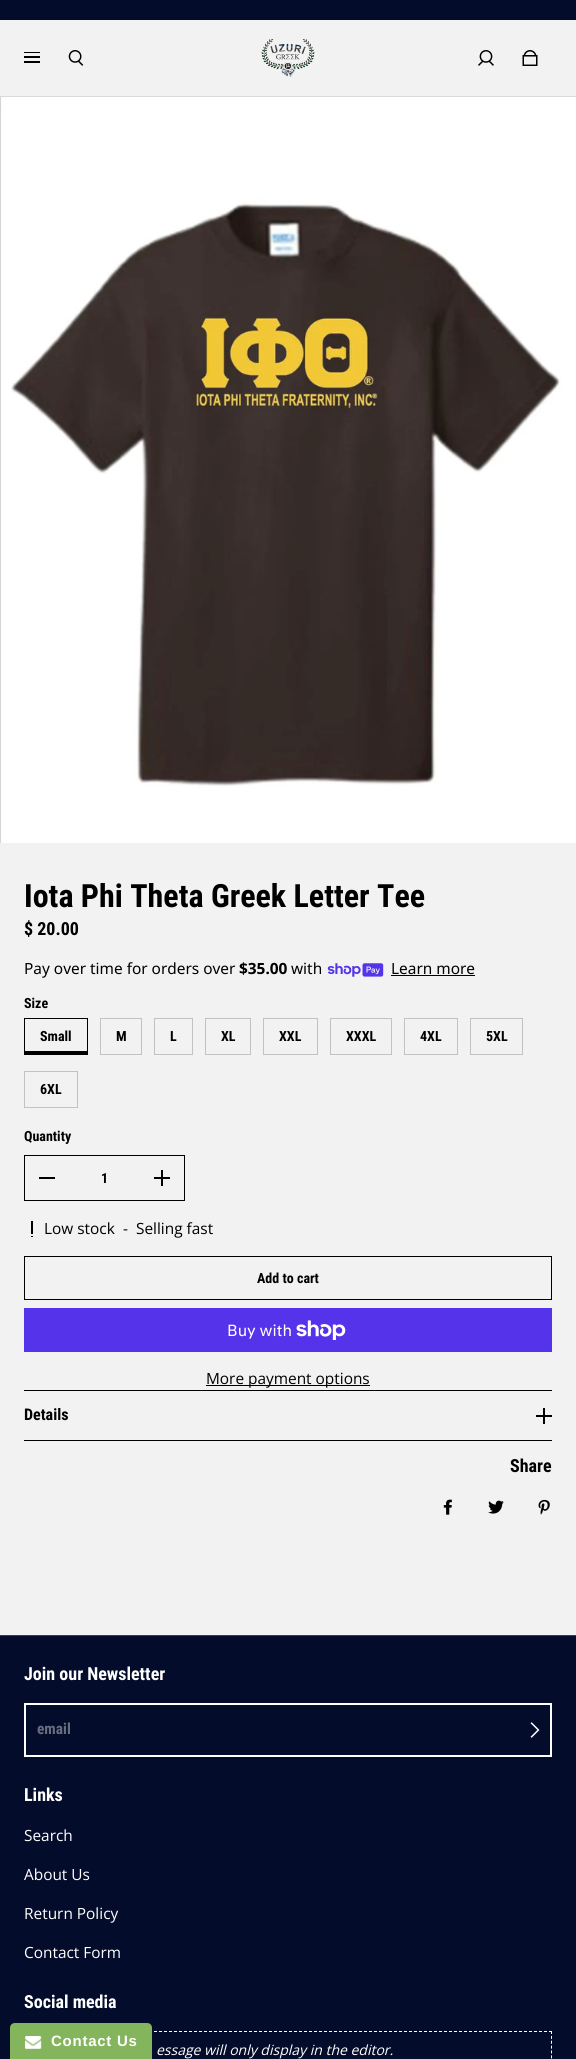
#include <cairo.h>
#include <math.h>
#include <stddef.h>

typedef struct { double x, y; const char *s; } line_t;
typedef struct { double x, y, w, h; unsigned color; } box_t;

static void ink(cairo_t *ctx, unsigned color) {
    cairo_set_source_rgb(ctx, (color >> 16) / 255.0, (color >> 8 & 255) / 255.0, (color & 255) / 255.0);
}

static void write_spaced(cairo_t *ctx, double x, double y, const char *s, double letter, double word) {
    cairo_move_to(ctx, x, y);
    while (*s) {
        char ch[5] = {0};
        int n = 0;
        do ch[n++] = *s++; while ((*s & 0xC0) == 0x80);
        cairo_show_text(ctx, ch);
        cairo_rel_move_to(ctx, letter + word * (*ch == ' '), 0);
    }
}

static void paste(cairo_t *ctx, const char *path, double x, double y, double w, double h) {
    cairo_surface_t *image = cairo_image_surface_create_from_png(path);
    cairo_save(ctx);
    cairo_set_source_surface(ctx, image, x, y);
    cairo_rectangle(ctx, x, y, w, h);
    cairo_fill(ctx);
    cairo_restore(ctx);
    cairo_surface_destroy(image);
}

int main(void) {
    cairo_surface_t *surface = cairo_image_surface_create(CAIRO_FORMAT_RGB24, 576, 2059);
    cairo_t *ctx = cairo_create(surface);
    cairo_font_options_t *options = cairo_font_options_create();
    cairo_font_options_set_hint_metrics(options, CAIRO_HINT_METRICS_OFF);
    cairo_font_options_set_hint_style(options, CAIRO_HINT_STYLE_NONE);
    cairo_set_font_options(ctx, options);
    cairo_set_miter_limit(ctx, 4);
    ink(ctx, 0xF2F2F2);
    cairo_paint(ctx);
    {
        static const box_t items[] = {
            {0, 0, 576, 20, 0x040C2B},
            {0, 96, 576, 1, 0xDADADA},
            {24, 52, 16, 1, 0x000000},
            {24, 56, 16, 2, 0x000000},
            {24, 61, 16, 2, 0x000000},
        };
        for (size_t i = 0; i < sizeof items / sizeof *items; i++) {
            ink(ctx, items[i].color);
            cairo_rectangle(ctx, items[i].x, items[i].y, items[i].w, items[i].h);
            cairo_fill(ctx);
        }
    }
    paste(ctx, "media/1.png", 68, 50, 16, 16);
    paste(ctx, "media/2.png", 261, 39, 54, 38);
    paste(ctx, "media/3.png", 478, 50, 16, 16);
    paste(ctx, "media/4.png", 522, 50, 16, 16);
    paste(ctx, "media/5.png", 0, 97, 576, 746);
    cairo_select_font_face(ctx, "Roboto Condensed", CAIRO_FONT_SLANT_NORMAL, CAIRO_FONT_WEIGHT_BOLD);
    cairo_set_font_size(ctx, 32);
    cairo_move_to(ctx, 24, 907);
    cairo_show_text(ctx, "Iota Phi Theta Greek Letter Tee");
    cairo_set_font_size(ctx, 18);
    cairo_move_to(ctx, 24, 935);
    cairo_show_text(ctx, "$ 20.00");
    cairo_select_font_face(ctx, "Noto Sans", CAIRO_FONT_SLANT_NORMAL, CAIRO_FONT_WEIGHT_NORMAL);
    cairo_set_font_size(ctx, 15.4);
    cairo_move_to(ctx, 24, 974);
    cairo_show_text(ctx, "Pay over time for orders over");
    cairo_select_font_face(ctx, "Noto Sans", CAIRO_FONT_SLANT_NORMAL, CAIRO_FONT_WEIGHT_BOLD);
    cairo_move_to(ctx, 239, 974);
    cairo_show_text(ctx, "$35.00");
    cairo_select_font_face(ctx, "Noto Sans", CAIRO_FONT_SLANT_NORMAL, CAIRO_FONT_WEIGHT_NORMAL);
    cairo_move_to(ctx, 291, 974);
    cairo_show_text(ctx, "with");
    paste(ctx, "media/6.png", 327, 963, 57, 14);
    cairo_move_to(ctx, 391, 974);
    cairo_show_text(ctx, "Learn more");
    cairo_rectangle(ctx, 391, 975, 84, 1);
    cairo_fill(ctx);
    cairo_select_font_face(ctx, "Roboto Condensed", CAIRO_FONT_SLANT_NORMAL, CAIRO_FONT_WEIGHT_BOLD);
    cairo_set_font_size(ctx, 14);
    cairo_move_to(ctx, 24, 1008);
    cairo_show_text(ctx, "Size");
    cairo_rectangle(ctx, 24.5, 1018.5, 63, 36);
    cairo_set_line_width(ctx, 1);
    cairo_stroke(ctx);
    cairo_move_to(ctx, 40, 1041);
    cairo_show_text(ctx, "Small");
    cairo_rectangle(ctx, 24, 1051, 64, 3);
    cairo_fill(ctx);
    cairo_rectangle(ctx, 100.5, 1018.5, 41, 36);
    ink(ctx, 0xC2C2C2);
    cairo_stroke(ctx);
    ink(ctx, 0x000000);
    cairo_move_to(ctx, 116, 1041);
    cairo_show_text(ctx, "M");
    cairo_rectangle(ctx, 154.5, 1018.5, 38, 36);
    ink(ctx, 0xC2C2C2);
    cairo_stroke(ctx);
    ink(ctx, 0x000000);
    cairo_move_to(ctx, 170, 1041);
    cairo_show_text(ctx, "L");
    cairo_rectangle(ctx, 205.5, 1018.5, 45, 36);
    ink(ctx, 0xC2C2C2);
    cairo_stroke(ctx);
    ink(ctx, 0x000000);
    cairo_move_to(ctx, 221, 1041);
    cairo_show_text(ctx, "XL");
    cairo_rectangle(ctx, 263.5, 1018.5, 54, 36);
    ink(ctx, 0xC2C2C2);
    cairo_stroke(ctx);
    ink(ctx, 0x000000);
    cairo_move_to(ctx, 279, 1041);
    cairo_show_text(ctx, "XXL");
    cairo_rectangle(ctx, 330.5, 1018.5, 61, 36);
    ink(ctx, 0xC2C2C2);
    cairo_stroke(ctx);
    ink(ctx, 0x000000);
    cairo_move_to(ctx, 346, 1041);
    cairo_show_text(ctx, "XXXL");
    cairo_rectangle(ctx, 404.5, 1018.5, 53, 36);
    ink(ctx, 0xC2C2C2);
    cairo_stroke(ctx);
    ink(ctx, 0x000000);
    cairo_move_to(ctx, 420, 1041);
    cairo_show_text(ctx, "4XL");
    cairo_rectangle(ctx, 470.5, 1018.5, 52, 36);
    ink(ctx, 0xC2C2C2);
    cairo_stroke(ctx);
    ink(ctx, 0x000000);
    cairo_move_to(ctx, 486, 1041);
    cairo_show_text(ctx, "5XL");
    cairo_rectangle(ctx, 24.5, 1071.5, 53, 36);
    ink(ctx, 0xC2C2C2);
    cairo_stroke(ctx);
    ink(ctx, 0x000000);
    cairo_move_to(ctx, 40, 1094);
    cairo_show_text(ctx, "6XL");
    cairo_move_to(ctx, 24, 1141);
    cairo_show_text(ctx, "Quantity");
    cairo_rectangle(ctx, 24.5, 1155.5, 160, 45);
    cairo_stroke(ctx);
    cairo_rectangle(ctx, 39, 1177, 16, 2);
    cairo_fill(ctx);
    cairo_move_to(ctx, 101, 1183);
    cairo_show_text(ctx, "1");
    {
        static const box_t items[] = {
            {154, 1177, 16, 2, 0x000000},
            {161, 1170, 2, 16, 0x000000},
            {31, 1221, 2, 13, 0x000000},
            {31, 1236, 2, 1, 0x000000},
        };
        for (size_t i = 0; i < sizeof items / sizeof *items; i++) {
            ink(ctx, items[i].color);
            cairo_rectangle(ctx, items[i].x, items[i].y, items[i].w, items[i].h);
            cairo_fill(ctx);
        }
    }
    cairo_select_font_face(ctx, "Open Sans", CAIRO_FONT_SLANT_NORMAL, CAIRO_FONT_WEIGHT_NORMAL);
    cairo_set_font_size(ctx, 15.4);
    {
        static const line_t items[] = {
            {44, 1234, "Low stock"},
            {123, 1234, "-"},
            {136, 1234, "Selling fast"},
        };
        for (size_t i = 0; i < sizeof items / sizeof *items; i++) {
            cairo_move_to(ctx, items[i].x, items[i].y);
            cairo_show_text(ctx, items[i].s);
        }
    }
    cairo_rectangle(ctx, 24.5, 1256.5, 527, 43);
    cairo_stroke(ctx);
    cairo_select_font_face(ctx, "Roboto Condensed", CAIRO_FONT_SLANT_NORMAL, CAIRO_FONT_WEIGHT_BOLD);
    cairo_set_font_size(ctx, 14);
    cairo_move_to(ctx, 257, 1283);
    cairo_show_text(ctx, "Add to cart");
    ink(ctx, 0x5433EB);
    cairo_rectangle(ctx, 24, 1308, 528, 44);
    cairo_fill(ctx);
    cairo_select_font_face(ctx, "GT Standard", CAIRO_FONT_SLANT_NORMAL, CAIRO_FONT_WEIGHT_NORMAL);
    cairo_set_font_size(ctx, 16);
    ink(ctx, 0xFFFFFF);
    cairo_move_to(ctx, 227, 1336);
    cairo_show_text(ctx, "Buy with");
    paste(ctx, "media/7.png", 296, 1320, 50, 20);
    ink(ctx, 0x000000);
    cairo_rectangle(ctx, 206, 1385, 164, 1);
    cairo_fill(ctx);
    cairo_select_font_face(ctx, "Open Sans", CAIRO_FONT_SLANT_NORMAL, CAIRO_FONT_WEIGHT_NORMAL);
    cairo_set_font_size(ctx, 15.4);
    cairo_move_to(ctx, 206, 1384);
    cairo_show_text(ctx, "More payment options");
    cairo_rectangle(ctx, 24, 1390, 528, 1);
    cairo_fill(ctx);
    cairo_rectangle(ctx, 24, 1440, 528, 1);
    cairo_fill(ctx);
    cairo_select_font_face(ctx, "Roboto Condensed", CAIRO_FONT_SLANT_NORMAL, CAIRO_FONT_WEIGHT_BOLD);
    cairo_set_font_size(ctx, 16);
    cairo_move_to(ctx, 24, 1420);
    cairo_show_text(ctx, "Details");
    cairo_rectangle(ctx, 536, 1415, 16, 2);
    cairo_fill(ctx);
    cairo_rectangle(ctx, 543, 1408, 2, 16);
    cairo_fill(ctx);
    cairo_set_font_size(ctx, 18);
    cairo_move_to(ctx, 510, 1472);
    cairo_show_text(ctx, "Share");
    paste(ctx, "media/8.png", 443, 1499, 9, 16);
    paste(ctx, "media/9.png", 488, 1500, 16, 14);
    paste(ctx, "media/10.png", 538, 1499, 12, 16);
    ink(ctx, 0x040C2B);
    cairo_rectangle(ctx, 0, 1636, 576, 423);
    cairo_fill(ctx);
    ink(ctx, 0x363D55);
    cairo_rectangle(ctx, 0, 1635, 576, 1);
    cairo_fill(ctx);
    ink(ctx, 0xFFFFFF);
    cairo_move_to(ctx, 24, 1680);
    cairo_show_text(ctx, "Join our Newsletter");
    cairo_rectangle(ctx, 25, 1704, 526, 52);
    cairo_set_line_width(ctx, 2);
    cairo_stroke(ctx);
    cairo_set_font_size(ctx, 15.4);
    ink(ctx, 0x686D80);
    cairo_move_to(ctx, 37, 1734);
    cairo_show_text(ctx, "email");
    paste(ctx, "media/11.png", 530, 1722, 10, 16);
    cairo_set_font_size(ctx, 18);
    ink(ctx, 0xFFFFFF);
    cairo_move_to(ctx, 24, 1801);
    cairo_show_text(ctx, "Links");
    cairo_select_font_face(ctx, "Open Sans", CAIRO_FONT_SLANT_NORMAL, CAIRO_FONT_WEIGHT_NORMAL);
    cairo_set_font_size(ctx, 15.4);
    {
        static const line_t items[] = {
            {24, 1841, "Search"},
            {24, 1880, "About Us"},
            {24, 1919, "Return Policy"},
            {24, 1958, "Contact Form"},
        };
        for (size_t i = 0; i < sizeof items / sizeof *items; i++) {
            cairo_move_to(ctx, items[i].x, items[i].y);
            cairo_show_text(ctx, items[i].s);
        }
    }
    cairo_select_font_face(ctx, "Roboto Condensed", CAIRO_FONT_SLANT_NORMAL, CAIRO_FONT_WEIGHT_BOLD);
    cairo_set_font_size(ctx, 18);
    cairo_move_to(ctx, 24, 2008);
    cairo_show_text(ctx, "Social media");
    cairo_new_path(ctx);
    cairo_move_to(ctx, 24, 2031.5);
    cairo_line_to(ctx, 552, 2031.5);
    cairo_set_line_width(ctx, 1);
    cairo_set_dash(ctx, (double[]){3, 2}, 2, 0);
    cairo_stroke(ctx);
    cairo_new_path(ctx);
    cairo_move_to(ctx, 551.5, 2031);
    cairo_line_to(ctx, 551.5, 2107);
    cairo_set_dash(ctx, (double[]){3, 1.87}, 2, 0);
    cairo_stroke(ctx);
    cairo_select_font_face(ctx, "Open Sans", CAIRO_FONT_SLANT_ITALIC, CAIRO_FONT_WEIGHT_NORMAL);
    cairo_set_font_size(ctx, 14);
    cairo_move_to(ctx, 156, 2055);
    cairo_show_text(ctx, "essage will only display in the editor.");
    ink(ctx, 0x84B45B);
    cairo_new_path(ctx);
    cairo_move_to(ctx, 15, 2023);
    cairo_line_to(ctx, 147, 2023);
    cairo_curve_to(ctx, 150, 2023, 152, 2025, 152, 2028);
    cairo_line_to(ctx, 152, 2059);
    cairo_line_to(ctx, 10, 2059);
    cairo_line_to(ctx, 10, 2028);
    cairo_curve_to(ctx, 10, 2025, 12, 2023, 15, 2023);
    cairo_close_path(ctx);
    cairo_fill(ctx);
    paste(ctx, "media/12.png", 25, 2036, 17, 13);
    cairo_select_font_face(ctx, "Liberation Sans", CAIRO_FONT_SLANT_NORMAL, CAIRO_FONT_WEIGHT_BOLD);
    cairo_set_font_size(ctx, 15);
    ink(ctx, 0xFFFFFF);
    write_spaced(ctx, 51, 2046, "Contact Us", 0.75, 0);
    cairo_surface_write_to_png(surface, "image.png");
    cairo_font_options_destroy(options);
    cairo_destroy(ctx);
    cairo_surface_destroy(surface);
    return 0;
}
